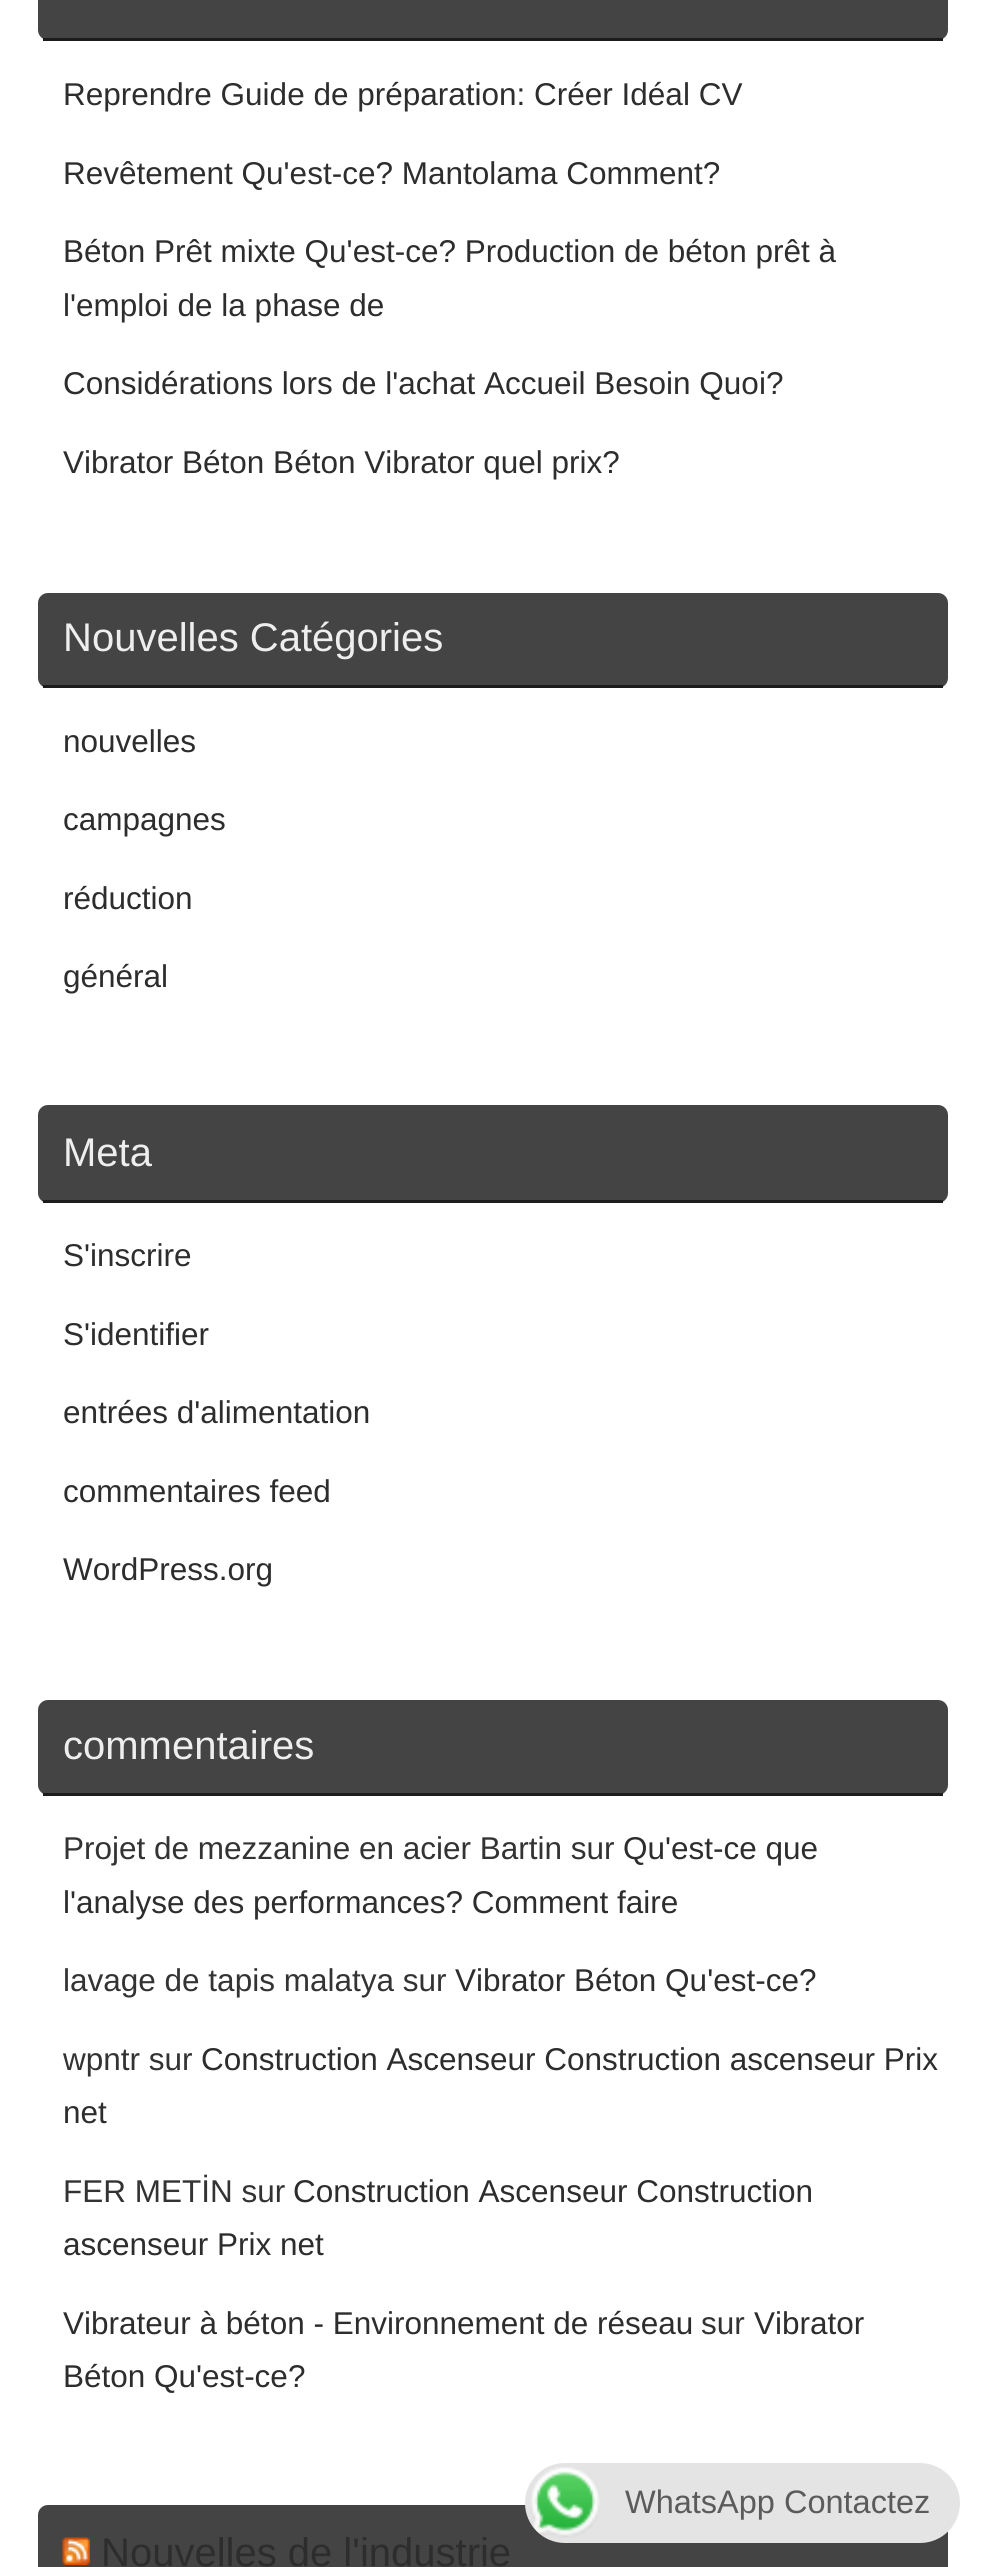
#include <cairo.h>
#include <math.h>
#include <stddef.h>

typedef struct { double x, y; const char *s; } line_t;

static void ink(cairo_t *ctx, unsigned color) {
    cairo_set_source_rgb(ctx, (color >> 16) / 255.0, (color >> 8 & 255) / 255.0, (color & 255) / 255.0);
}

static void round_path(cairo_t *ctx, double x, double y, double w, double h, double r) {
    cairo_new_sub_path(ctx);
    cairo_arc(ctx, x + w - r, y + h - r, r, 0, M_PI / 2);
    cairo_arc(ctx, x + r, y + h - r, r, M_PI / 2, M_PI);
    cairo_arc(ctx, x + r, y + r, r, M_PI, 1.5 * M_PI);
    cairo_arc(ctx, x + w - r, y + r, r, 1.5 * M_PI, 2 * M_PI);
    cairo_close_path(ctx);
}

static void paste(cairo_t *ctx, const char *path, double x, double y, double w, double h) {
    cairo_surface_t *image = cairo_image_surface_create_from_png(path);
    cairo_save(ctx);
    cairo_set_source_surface(ctx, image, x, y);
    cairo_rectangle(ctx, x, y, w, h);
    cairo_fill(ctx);
    cairo_restore(ctx);
    cairo_surface_destroy(image);
}

int main(void) {
    cairo_surface_t *surface = cairo_image_surface_create(CAIRO_FORMAT_RGB24, 983, 2567);
    cairo_t *ctx = cairo_create(surface);
    cairo_font_options_t *options = cairo_font_options_create();
    cairo_font_options_set_hint_metrics(options, CAIRO_HINT_METRICS_OFF);
    cairo_font_options_set_hint_style(options, CAIRO_HINT_STYLE_NONE);
    cairo_set_font_options(ctx, options);
    cairo_set_miter_limit(ctx, 4);
    ink(ctx, 0xFFFFFF);
    cairo_paint(ctx);
    ink(ctx, 0x444444);
    round_path(ctx, 38, -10, 910, 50, 10);
    cairo_fill(ctx);
    ink(ctx, 0x1C1C1C);
    cairo_rectangle(ctx, 43, 38, 900, 3);
    cairo_fill(ctx);
    cairo_select_font_face(ctx, "Liberation Sans", CAIRO_FONT_SLANT_NORMAL, CAIRO_FONT_WEIGHT_NORMAL);
    cairo_set_font_size(ctx, 31.5);
    ink(ctx, 0x2D2D2D);
    {
        static const line_t items[] = {
            {63, 105, "Reprendre Guide de préparation: Créer Idéal CV"},
            {63, 184, "Revêtement Qu'est-ce? Mantolama Comment?"},
            {63, 262, "Béton Prêt mixte Qu'est-ce? Production de béton prêt à"},
            {63, 316, "l'emploi de la phase de"},
            {63, 394, "Considérations lors de l'achat Accueil Besoin Quoi?"},
            {63, 473, "Vibrator Béton Béton Vibrator quel prix?"},
        };
        for (size_t i = 0; i < sizeof items / sizeof *items; i++) {
            cairo_move_to(ctx, items[i].x, items[i].y);
            cairo_show_text(ctx, items[i].s);
        }
    }
    ink(ctx, 0x444444);
    round_path(ctx, 38, 593, 910, 95, 10);
    cairo_fill(ctx);
    ink(ctx, 0x1C1C1C);
    cairo_rectangle(ctx, 43, 685, 900, 3);
    cairo_fill(ctx);
    cairo_set_font_size(ctx, 40);
    ink(ctx, 0xEEEEEE);
    cairo_move_to(ctx, 63, 651);
    cairo_show_text(ctx, "Nouvelles Catégories");
    cairo_set_font_size(ctx, 31.5);
    ink(ctx, 0x2D2D2D);
    {
        static const line_t items[] = {
            {63, 752, "nouvelles"},
            {63, 830, "campagnes"},
            {63, 909, "réduction"},
            {63, 987, "général"},
        };
        for (size_t i = 0; i < sizeof items / sizeof *items; i++) {
            cairo_move_to(ctx, items[i].x, items[i].y);
            cairo_show_text(ctx, items[i].s);
        }
    }
    ink(ctx, 0x444444);
    round_path(ctx, 38, 1105, 910, 98, 10);
    cairo_fill(ctx);
    ink(ctx, 0x1C1C1C);
    cairo_rectangle(ctx, 43, 1200, 900, 3);
    cairo_fill(ctx);
    cairo_set_font_size(ctx, 40);
    ink(ctx, 0xEEEEEE);
    cairo_move_to(ctx, 63, 1166);
    cairo_show_text(ctx, "Meta");
    cairo_set_font_size(ctx, 31.5);
    ink(ctx, 0x2D2D2D);
    {
        static const line_t items[] = {
            {63, 1266, "S'inscrire"},
            {63, 1345, "S'identifier"},
            {63, 1423, "entrées d'alimentation"},
            {63, 1502, "commentaires feed"},
            {63, 1580, "WordPress.org"},
        };
        for (size_t i = 0; i < sizeof items / sizeof *items; i++) {
            cairo_move_to(ctx, items[i].x, items[i].y);
            cairo_show_text(ctx, items[i].s);
        }
    }
    ink(ctx, 0x444444);
    round_path(ctx, 38, 1700, 910, 95, 10);
    cairo_fill(ctx);
    ink(ctx, 0x1C1C1C);
    cairo_rectangle(ctx, 43, 1793, 900, 3);
    cairo_fill(ctx);
    cairo_set_font_size(ctx, 40);
    ink(ctx, 0xEEEEEE);
    cairo_move_to(ctx, 63, 1759);
    cairo_show_text(ctx, "commentaires");
    cairo_set_font_size(ctx, 31.5);
    ink(ctx, 0x333333);
    cairo_move_to(ctx, 63, 1859);
    cairo_show_text(ctx, "Projet de mezzanine en acier Bartin sur");
    ink(ctx, 0x2D2D2D);
    cairo_move_to(ctx, 623, 1859);
    cairo_show_text(ctx, "Qu'est-ce que");
    cairo_move_to(ctx, 63, 1913);
    cairo_show_text(ctx, "l'analyse des performances? Comment faire");
    ink(ctx, 0x333333);
    cairo_move_to(ctx, 63, 1991);
    cairo_show_text(ctx, "lavage de tapis malatya sur");
    ink(ctx, 0x2D2D2D);
    cairo_move_to(ctx, 455, 1991);
    cairo_show_text(ctx, "Vibrator Béton Qu'est-ce?");
    ink(ctx, 0x333333);
    cairo_move_to(ctx, 63, 2070);
    cairo_show_text(ctx, "wpntr sur");
    ink(ctx, 0x2D2D2D);
    cairo_move_to(ctx, 201, 2070);
    cairo_show_text(ctx, "Construction Ascenseur Construction ascenseur Prix");
    cairo_move_to(ctx, 63, 2123);
    cairo_show_text(ctx, "net");
    ink(ctx, 0x333333);
    cairo_move_to(ctx, 63, 2202);
    cairo_show_text(ctx, "FER METİN sur");
    ink(ctx, 0x2D2D2D);
    {
        static const line_t items[] = {
            {293, 2202, "Construction Ascenseur Construction"},
            {63, 2255, "ascenseur Prix net"},
            {63, 2334, "Vibrateur à béton - Environnement de réseau"},
        };
        for (size_t i = 0; i < sizeof items / sizeof *items; i++) {
            cairo_move_to(ctx, items[i].x, items[i].y);
            cairo_show_text(ctx, items[i].s);
        }
    }
    ink(ctx, 0x333333);
    cairo_move_to(ctx, 701, 2334);
    cairo_show_text(ctx, "sur");
    ink(ctx, 0x2D2D2D);
    cairo_move_to(ctx, 754, 2334);
    cairo_show_text(ctx, "Vibrator");
    cairo_move_to(ctx, 63, 2387);
    cairo_show_text(ctx, "Béton Qu'est-ce?");
    ink(ctx, 0x444444);
    round_path(ctx, 38, 2505, 910, 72, 10);
    cairo_fill(ctx);
    paste(ctx, "media/1.png", 62, 2537, 28, 28);
    cairo_set_font_size(ctx, 40);
    ink(ctx, 0x2D2D2D);
    cairo_move_to(ctx, 101, 2566);
    cairo_show_text(ctx, "Nouvelles de l'industrie");
    ink(ctx, 0xE4E4E4);
    round_path(ctx, 525, 2463, 435, 80, 40);
    cairo_fill(ctx);
    paste(ctx, "media/2.png", 530, 2467, 70, 71);
    cairo_set_font_size(ctx, 32.5);
    ink(ctx, 0x5B5B5B);
    cairo_move_to(ctx, 625, 2513);
    cairo_show_text(ctx, "WhatsApp Contactez");
    cairo_surface_write_to_png(surface, "image.png");
    cairo_font_options_destroy(options);
    cairo_destroy(ctx);
    cairo_surface_destroy(surface);
    return 0;
}
